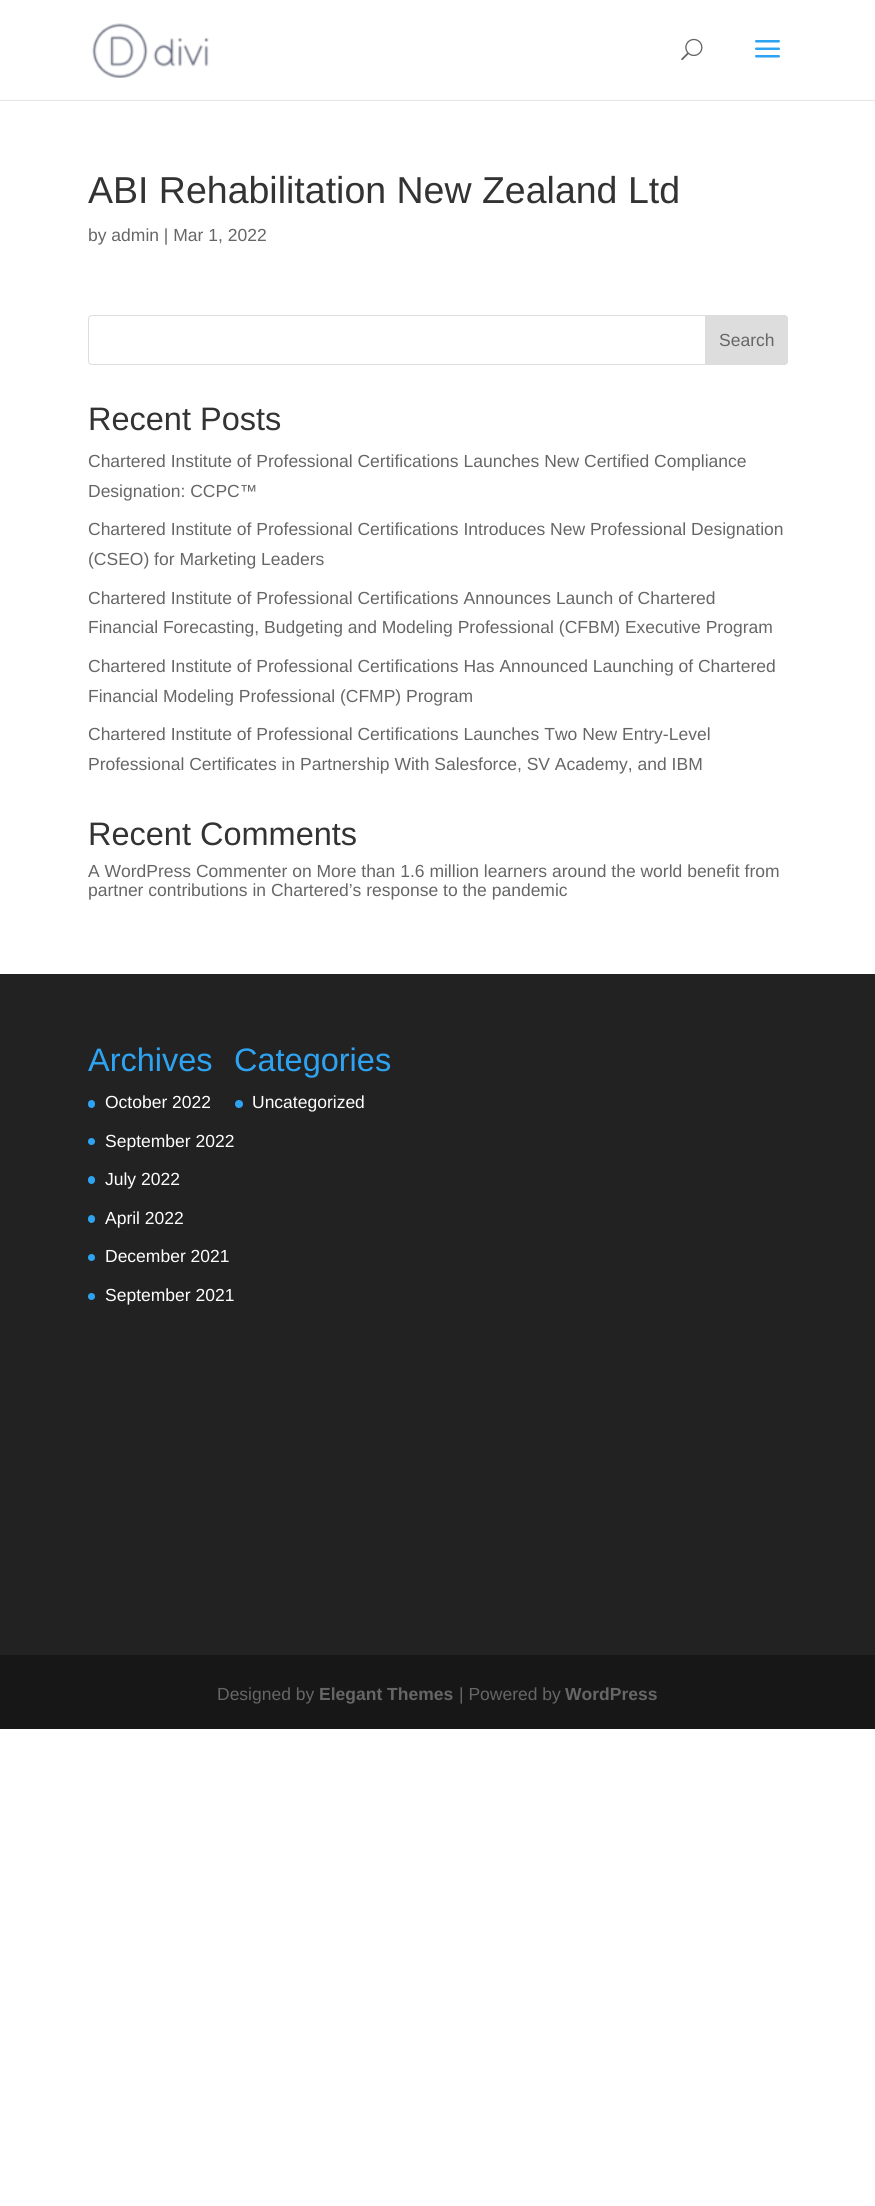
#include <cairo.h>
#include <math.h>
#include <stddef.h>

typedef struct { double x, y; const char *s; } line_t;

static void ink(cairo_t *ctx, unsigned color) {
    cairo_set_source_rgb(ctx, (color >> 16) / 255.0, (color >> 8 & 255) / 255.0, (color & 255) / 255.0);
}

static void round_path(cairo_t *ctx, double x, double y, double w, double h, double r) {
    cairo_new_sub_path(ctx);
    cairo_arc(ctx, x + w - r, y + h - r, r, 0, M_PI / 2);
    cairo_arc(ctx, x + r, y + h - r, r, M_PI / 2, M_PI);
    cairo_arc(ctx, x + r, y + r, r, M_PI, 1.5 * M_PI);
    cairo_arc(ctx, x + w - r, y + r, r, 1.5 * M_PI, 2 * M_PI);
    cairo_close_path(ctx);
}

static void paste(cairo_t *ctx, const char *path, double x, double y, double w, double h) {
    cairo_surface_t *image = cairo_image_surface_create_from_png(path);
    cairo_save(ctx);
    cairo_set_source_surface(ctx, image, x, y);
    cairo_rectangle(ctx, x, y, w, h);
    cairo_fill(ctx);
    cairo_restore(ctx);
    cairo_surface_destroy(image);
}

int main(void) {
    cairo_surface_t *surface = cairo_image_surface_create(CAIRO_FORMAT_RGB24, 875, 2206);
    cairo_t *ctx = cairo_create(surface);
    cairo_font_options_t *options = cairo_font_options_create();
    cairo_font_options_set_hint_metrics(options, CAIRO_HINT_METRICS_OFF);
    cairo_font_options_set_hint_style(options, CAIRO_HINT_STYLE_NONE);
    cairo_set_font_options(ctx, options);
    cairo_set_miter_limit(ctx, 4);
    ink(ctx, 0xFFFFFF);
    cairo_paint(ctx);
    ink(ctx, 0xE6E6E6);
    cairo_rectangle(ctx, 0, 100, 875, 1);
    cairo_fill(ctx);
    paste(ctx, "media/1.png", 92, 23, 117, 55);
    paste(ctx, "media/2.png", 681, 38, 22, 23);
    paste(ctx, "media/3.png", 755, 40, 25, 18);
    cairo_select_font_face(ctx, "Liberation Sans", CAIRO_FONT_SLANT_NORMAL, CAIRO_FONT_WEIGHT_NORMAL);
    cairo_set_font_size(ctx, 37.5);
    ink(ctx, 0x333333);
    cairo_move_to(ctx, 88, 203);
    cairo_show_text(ctx, "ABI Rehabilitation New Zealand Ltd");
    cairo_set_font_size(ctx, 17.5);
    ink(ctx, 0x666666);
    cairo_move_to(ctx, 88, 241);
    cairo_show_text(ctx, "by admin | Mar 1, 2022");
    round_path(ctx, 88.5, 315.5, 699, 49, 3.5);
    ink(ctx, 0xDDDDDD);
    cairo_set_line_width(ctx, 1);
    cairo_stroke(ctx);
    cairo_new_path(ctx);
    cairo_move_to(ctx, 705.5, 315.5);
    cairo_line_to(ctx, 784, 315.5);
    cairo_curve_to(ctx, 786, 315.5, 787.5, 317, 787.5, 319);
    cairo_line_to(ctx, 787.5, 361);
    cairo_curve_to(ctx, 787.5, 363, 786, 364.5, 784, 364.5);
    cairo_line_to(ctx, 705.5, 364.5);
    cairo_close_path(ctx);
    cairo_fill_preserve(ctx);
    cairo_stroke(ctx);
    ink(ctx, 0x666666);
    cairo_move_to(ctx, 719, 346);
    cairo_show_text(ctx, "Search");
    cairo_set_font_size(ctx, 32.5);
    ink(ctx, 0x333333);
    cairo_move_to(ctx, 88, 430);
    cairo_show_text(ctx, "Recent Posts");
    cairo_set_font_size(ctx, 17.5);
    ink(ctx, 0x666666);
    {
        static const line_t items[] = {
            {88, 467, "Chartered Institute of Professional Certifications Launches New Certified Compliance"},
            {88, 497, "Designation: CCPC™"},
            {88, 535, "Chartered Institute of Professional Certifications Introduces New Professional Designation"},
            {88, 565, "(CSEO) for Marketing Leaders"},
            {88, 604, "Chartered Institute of Professional Certifications Announces Launch of Chartered"},
            {88, 633, "Financial Forecasting, Budgeting and Modeling Professional (CFBM) Executive Program"},
            {88, 672, "Chartered Institute of Professional Certifications Has Announced Launching of Chartered"},
            {88, 702, "Financial Modeling Professional (CFMP) Program"},
            {88, 740, "Chartered Institute of Professional Certifications Launches Two New Entry-Level"},
            {88, 770, "Professional Certificates in Partnership With Salesforce, SV Academy, and IBM"},
        };
        for (size_t i = 0; i < sizeof items / sizeof *items; i++) {
            cairo_move_to(ctx, items[i].x, items[i].y);
            cairo_show_text(ctx, items[i].s);
        }
    }
    cairo_set_font_size(ctx, 32.5);
    ink(ctx, 0x333333);
    cairo_move_to(ctx, 88, 845);
    cairo_show_text(ctx, "Recent Comments");
    cairo_set_font_size(ctx, 17.5);
    ink(ctx, 0x666666);
    cairo_move_to(ctx, 88, 877);
    cairo_show_text(ctx, "A WordPress Commenter on More than 1.6 million learners around the world benefit from");
    cairo_move_to(ctx, 88, 896);
    cairo_show_text(ctx, "partner contributions in Chartered’s response to the pandemic");
    ink(ctx, 0x222222);
    cairo_rectangle(ctx, 0, 974, 875, 681);
    cairo_fill(ctx);
    cairo_set_font_size(ctx, 32.5);
    ink(ctx, 0x2EA3F2);
    cairo_move_to(ctx, 88, 1071);
    cairo_show_text(ctx, "Archives");
    round_path(ctx, 88, 1100, 7, 8, 3.5);
    cairo_fill(ctx);
    cairo_set_font_size(ctx, 17.5);
    ink(ctx, 0xFFFFFF);
    cairo_move_to(ctx, 105, 1108);
    cairo_show_text(ctx, "October 2022");
    ink(ctx, 0x2EA3F2);
    cairo_new_path(ctx);
    cairo_arc(ctx, 91.5, 1141.5, 3.5, 0, 2 * M_PI);
    cairo_fill(ctx);
    ink(ctx, 0xFFFFFF);
    cairo_move_to(ctx, 105, 1147);
    cairo_show_text(ctx, "September 2022");
    ink(ctx, 0x2EA3F2);
    round_path(ctx, 88, 1176, 7, 8, 3.5);
    cairo_fill(ctx);
    ink(ctx, 0xFFFFFF);
    cairo_move_to(ctx, 105, 1185);
    cairo_show_text(ctx, "July 2022");
    ink(ctx, 0x2EA3F2);
    round_path(ctx, 88, 1215, 7, 8, 3.5);
    cairo_fill(ctx);
    ink(ctx, 0xFFFFFF);
    cairo_move_to(ctx, 105, 1224);
    cairo_show_text(ctx, "April 2022");
    ink(ctx, 0x2EA3F2);
    cairo_new_path(ctx);
    cairo_arc(ctx, 91.5, 1257.5, 3.5, 0, 2 * M_PI);
    cairo_fill(ctx);
    ink(ctx, 0xFFFFFF);
    cairo_move_to(ctx, 105, 1262);
    cairo_show_text(ctx, "December 2021");
    ink(ctx, 0x2EA3F2);
    cairo_new_path(ctx);
    cairo_arc(ctx, 91.5, 1296.5, 3.5, 0, 2 * M_PI);
    cairo_fill(ctx);
    ink(ctx, 0xFFFFFF);
    cairo_move_to(ctx, 105, 1301);
    cairo_show_text(ctx, "September 2021");
    cairo_set_font_size(ctx, 32.5);
    ink(ctx, 0x2EA3F2);
    cairo_move_to(ctx, 234, 1071);
    cairo_show_text(ctx, "Categories");
    cairo_new_path(ctx);
    cairo_arc(ctx, 239, 1104, 4, 0, 2 * M_PI);
    cairo_fill(ctx);
    cairo_set_font_size(ctx, 17.5);
    ink(ctx, 0xFFFFFF);
    cairo_move_to(ctx, 252, 1108);
    cairo_show_text(ctx, "Uncategorized");
    ink(ctx, 0x171717);
    cairo_rectangle(ctx, 0, 1655, 875, 74);
    cairo_fill(ctx);
    ink(ctx, 0x666666);
    cairo_move_to(ctx, 217, 1700);
    cairo_show_text(ctx, "Designed by");
    cairo_select_font_face(ctx, "Liberation Sans", CAIRO_FONT_SLANT_NORMAL, CAIRO_FONT_WEIGHT_BOLD);
    cairo_move_to(ctx, 319, 1700);
    cairo_show_text(ctx, "Elegant Themes");
    cairo_select_font_face(ctx, "Liberation Sans", CAIRO_FONT_SLANT_NORMAL, CAIRO_FONT_WEIGHT_NORMAL);
    cairo_move_to(ctx, 459, 1700);
    cairo_show_text(ctx, "| Powered by");
    cairo_select_font_face(ctx, "Liberation Sans", CAIRO_FONT_SLANT_NORMAL, CAIRO_FONT_WEIGHT_BOLD);
    cairo_move_to(ctx, 565, 1700);
    cairo_show_text(ctx, "WordPress");
    cairo_surface_write_to_png(surface, "image.png");
    cairo_font_options_destroy(options);
    cairo_destroy(ctx);
    cairo_surface_destroy(surface);
    return 0;
}
